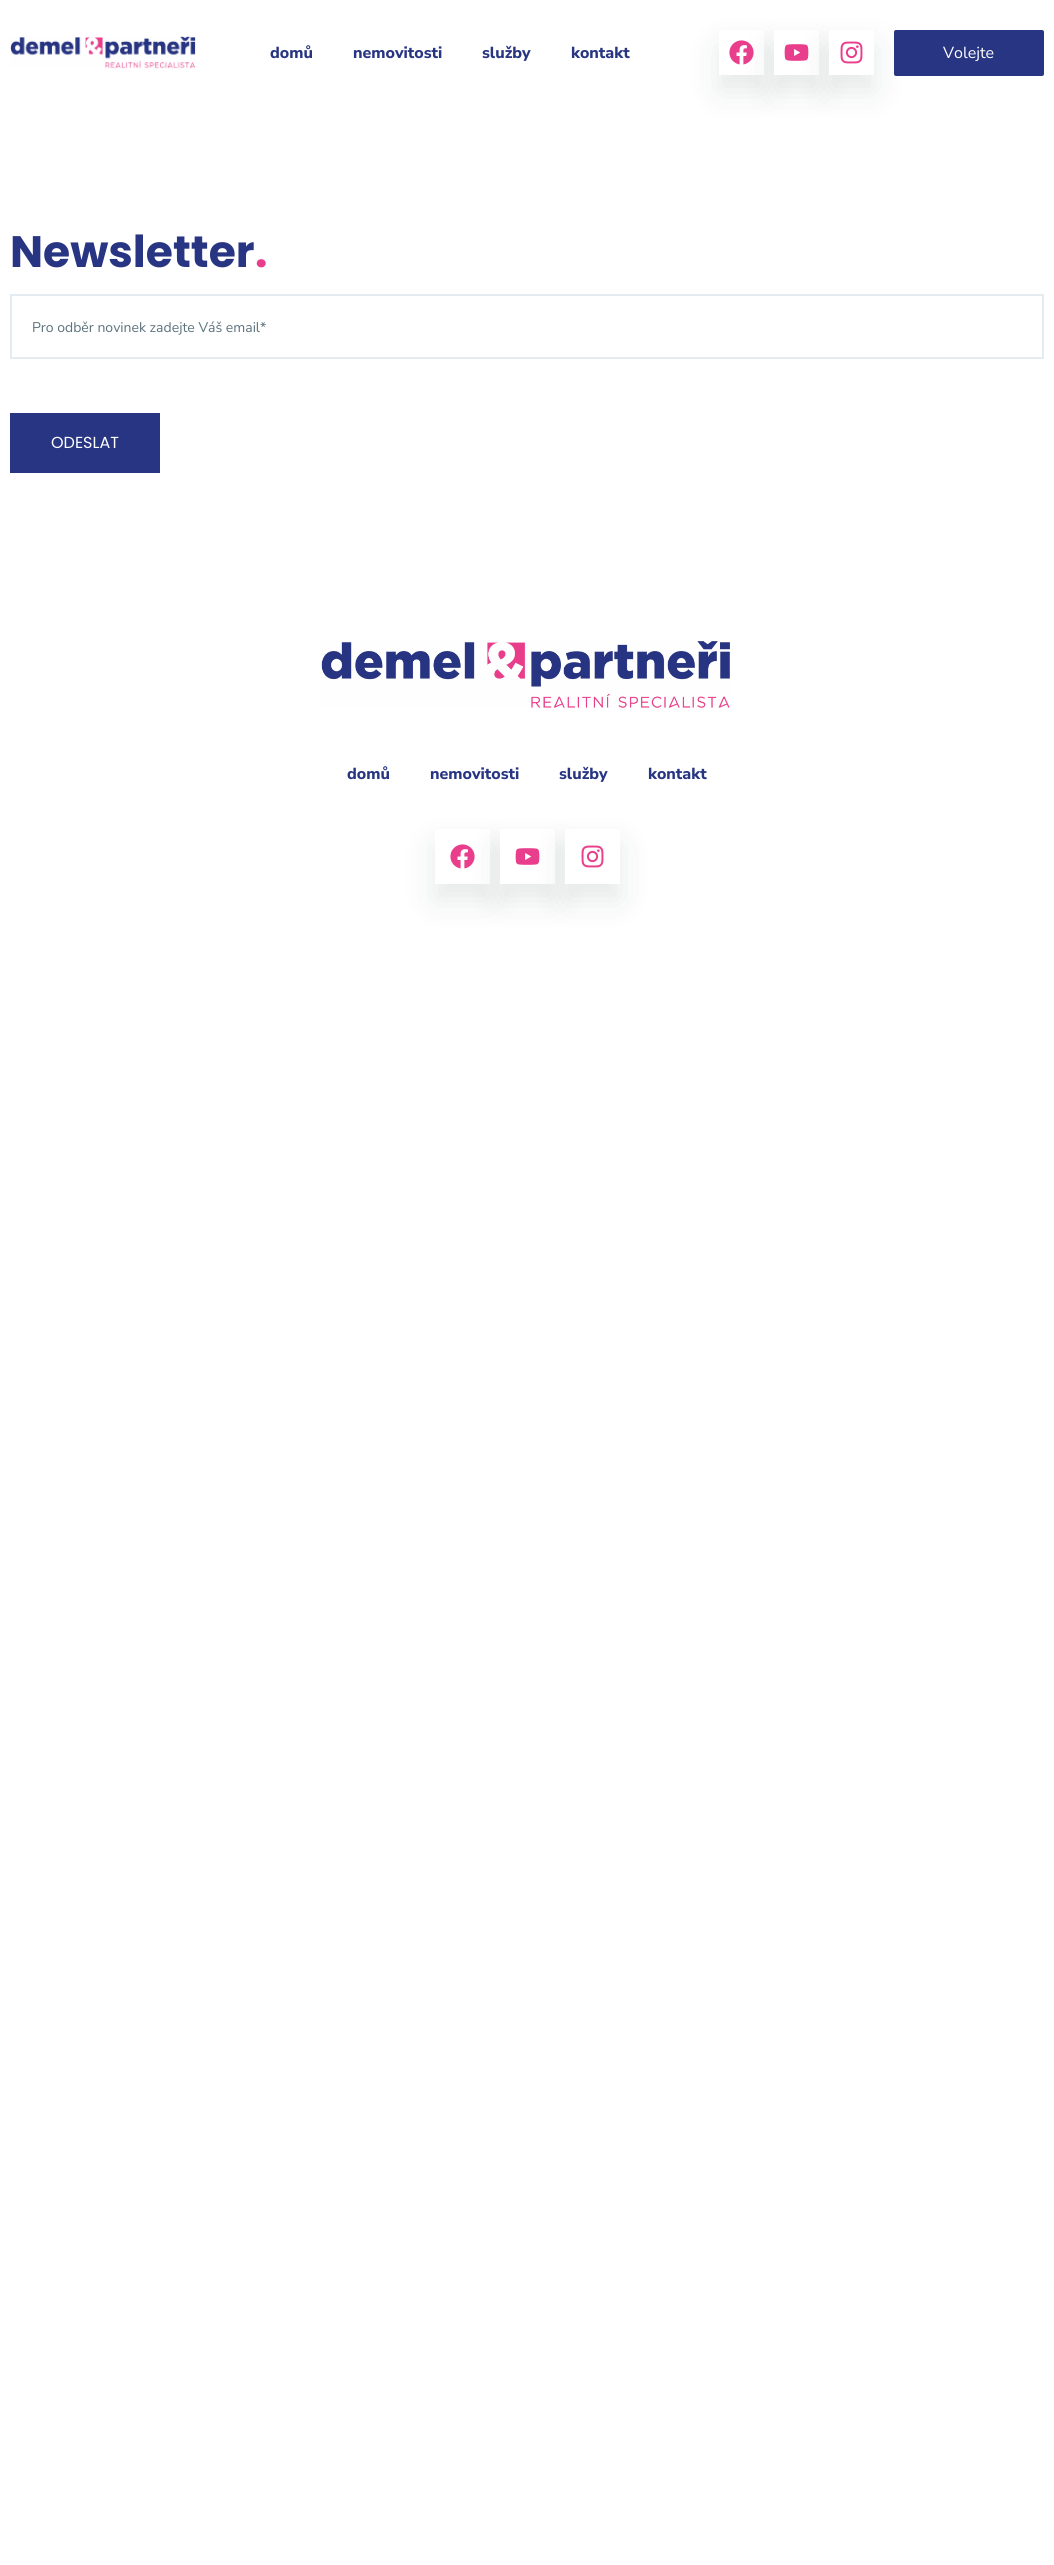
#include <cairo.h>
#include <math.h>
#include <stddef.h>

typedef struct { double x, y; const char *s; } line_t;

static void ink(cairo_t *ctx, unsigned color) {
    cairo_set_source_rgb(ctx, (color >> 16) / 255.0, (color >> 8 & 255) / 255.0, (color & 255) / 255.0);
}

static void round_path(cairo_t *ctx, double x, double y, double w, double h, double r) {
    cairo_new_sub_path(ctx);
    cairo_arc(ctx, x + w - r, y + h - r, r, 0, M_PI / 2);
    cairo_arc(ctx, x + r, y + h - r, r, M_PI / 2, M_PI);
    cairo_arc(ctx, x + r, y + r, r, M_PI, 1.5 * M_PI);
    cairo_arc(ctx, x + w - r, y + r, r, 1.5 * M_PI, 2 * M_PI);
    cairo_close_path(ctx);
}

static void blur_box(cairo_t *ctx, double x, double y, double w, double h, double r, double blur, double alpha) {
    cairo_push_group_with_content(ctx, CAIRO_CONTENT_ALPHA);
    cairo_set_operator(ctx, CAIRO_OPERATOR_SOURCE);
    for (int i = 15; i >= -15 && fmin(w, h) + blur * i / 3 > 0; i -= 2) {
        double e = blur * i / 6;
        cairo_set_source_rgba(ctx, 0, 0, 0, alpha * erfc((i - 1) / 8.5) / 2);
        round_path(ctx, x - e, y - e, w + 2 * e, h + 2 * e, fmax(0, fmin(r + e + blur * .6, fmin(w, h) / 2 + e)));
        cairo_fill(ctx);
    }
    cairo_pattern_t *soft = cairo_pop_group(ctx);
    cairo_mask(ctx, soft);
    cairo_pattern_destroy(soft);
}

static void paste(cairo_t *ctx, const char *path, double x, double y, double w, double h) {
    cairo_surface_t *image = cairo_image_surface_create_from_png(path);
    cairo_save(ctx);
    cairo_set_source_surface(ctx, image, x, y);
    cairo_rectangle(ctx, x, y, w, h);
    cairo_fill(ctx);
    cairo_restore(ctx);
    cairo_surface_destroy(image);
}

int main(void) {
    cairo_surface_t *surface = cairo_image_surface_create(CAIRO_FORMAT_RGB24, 1054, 2565);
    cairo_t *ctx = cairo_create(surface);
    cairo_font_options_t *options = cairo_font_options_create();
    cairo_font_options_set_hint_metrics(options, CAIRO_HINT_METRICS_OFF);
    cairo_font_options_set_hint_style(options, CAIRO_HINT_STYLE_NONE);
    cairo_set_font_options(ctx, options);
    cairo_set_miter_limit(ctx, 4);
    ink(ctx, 0xFFFFFF);
    cairo_paint(ctx);
    paste(ctx, "media/1.png", 10, 36, 186, 33);
    cairo_select_font_face(ctx, "Nunito Sans ExtraBold", CAIRO_FONT_SLANT_NORMAL, CAIRO_FONT_WEIGHT_NORMAL);
    cairo_set_font_size(ctx, 16);
    ink(ctx, 0x283583);
    {
        static const line_t items[] = {
            {270, 58, "domů"},
            {353, 58, "nemovitosti"},
            {482, 58, "služby"},
            {571, 58, "kontakt"},
        };
        for (size_t i = 0; i < sizeof items / sizeof *items; i++) {
            cairo_move_to(ctx, items[i].x, items[i].y);
            cairo_show_text(ctx, items[i].s);
        }
    }
    cairo_save(ctx);
    cairo_set_fill_rule(ctx, CAIRO_FILL_RULE_EVEN_ODD);
    cairo_new_path(ctx);
    cairo_move_to(ctx, 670, 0);
    cairo_line_to(ctx, 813, 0);
    cairo_line_to(ctx, 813, 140);
    cairo_line_to(ctx, 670, 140);
    cairo_close_path(ctx);
    cairo_move_to(ctx, 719, 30);
    cairo_line_to(ctx, 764, 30);
    cairo_line_to(ctx, 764, 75);
    cairo_line_to(ctx, 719, 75);
    cairo_close_path(ctx);
    cairo_clip(ctx);
    ink(ctx, 0x071C1F);
    blur_box(ctx, 719, 46, 45, 45, 0, 16, 0.1);
    cairo_restore(ctx);
    ink(ctx, 0x071C1F);
    blur_box(ctx, 774, 46, 45, 45, 0, 16, 0.1);
    paste(ctx, "media/2.png", 729, 40, 25, 25);
    ink(ctx, 0xFFFFFF);
    cairo_rectangle(ctx, 774, 30, 45, 45);
    cairo_fill(ctx);
    ink(ctx, 0x071C1F);
    blur_box(ctx, 829, 46, 45, 45, 0, 16, 0.1);
    paste(ctx, "media/3.png", 784, 44, 25, 17);
    ink(ctx, 0xFFFFFF);
    cairo_rectangle(ctx, 829, 30, 45, 45);
    cairo_fill(ctx);
    paste(ctx, "media/4.png", 840, 41, 23, 23);
    ink(ctx, 0x283583);
    round_path(ctx, 894, 30, 150, 46, 2);
    cairo_fill(ctx);
    cairo_select_font_face(ctx, "Nunito Sans", CAIRO_FONT_SLANT_NORMAL, CAIRO_FONT_WEIGHT_NORMAL);
    ink(ctx, 0xFFFFFF);
    cairo_move_to(ctx, 943, 58);
    cairo_show_text(ctx, "Volejte");
    cairo_select_font_face(ctx, "Poppins", CAIRO_FONT_SLANT_NORMAL, CAIRO_FONT_WEIGHT_BOLD);
    cairo_set_font_size(ctx, 44);
    ink(ctx, 0x283583);
    cairo_move_to(ctx, 10, 267);
    cairo_show_text(ctx, "Newsletter");
    ink(ctx, 0xE93E8C);
    cairo_move_to(ctx, 255, 267);
    cairo_show_text(ctx, ".");
    cairo_rectangle(ctx, 11, 295, 1032, 63);
    ink(ctx, 0xE4ECF2);
    cairo_stroke(ctx);
    cairo_select_font_face(ctx, "Nunito Sans", CAIRO_FONT_SLANT_NORMAL, CAIRO_FONT_WEIGHT_NORMAL);
    cairo_set_font_size(ctx, 14);
    ink(ctx, 0x5C727D);
    cairo_move_to(ctx, 32, 332);
    cairo_show_text(ctx, "Pro odběr novinek zadejte Váš email*");
    ink(ctx, 0x283583);
    cairo_rectangle(ctx, 10, 413, 150, 60);
    cairo_fill(ctx);
    cairo_select_font_face(ctx, "Poppins", CAIRO_FONT_SLANT_NORMAL, CAIRO_FONT_WEIGHT_NORMAL);
    cairo_set_font_size(ctx, 16);
    ink(ctx, 0xFFFFFF);
    cairo_move_to(ctx, 51, 448);
    cairo_show_text(ctx, "ODESLAT");
    paste(ctx, "media/5.png", 321, 641, 409, 67);
    cairo_select_font_face(ctx, "Nunito Sans ExtraBold", CAIRO_FONT_SLANT_NORMAL, CAIRO_FONT_WEIGHT_NORMAL);
    ink(ctx, 0x283583);
    {
        static const line_t items[] = {
            {347, 779, "domů"},
            {430, 779, "nemovitosti"},
            {559, 779, "služby"},
            {648, 779, "kontakt"},
        };
        for (size_t i = 0; i < sizeof items / sizeof *items; i++) {
            cairo_move_to(ctx, items[i].x, items[i].y);
            cairo_show_text(ctx, items[i].s);
        }
    }
    cairo_save(ctx);
    cairo_set_fill_rule(ctx, CAIRO_FILL_RULE_EVEN_ODD);
    cairo_new_path(ctx);
    cairo_move_to(ctx, 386, 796);
    cairo_line_to(ctx, 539, 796);
    cairo_line_to(ctx, 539, 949);
    cairo_line_to(ctx, 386, 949);
    cairo_close_path(ctx);
    cairo_move_to(ctx, 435, 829);
    cairo_line_to(ctx, 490, 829);
    cairo_line_to(ctx, 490, 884);
    cairo_line_to(ctx, 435, 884);
    cairo_close_path(ctx);
    cairo_clip(ctx);
    ink(ctx, 0x071C1F);
    blur_box(ctx, 435, 845, 55, 55, 0, 16, 0.1);
    cairo_restore(ctx);
    ink(ctx, 0x071C1F);
    blur_box(ctx, 500, 845, 55, 55, 0, 16, 0.1);
    paste(ctx, "media/6.png", 450, 844, 25, 25);
    ink(ctx, 0xFFFFFF);
    cairo_rectangle(ctx, 500, 829, 55, 55);
    cairo_fill(ctx);
    ink(ctx, 0x071C1F);
    blur_box(ctx, 565, 845, 55, 55, 0, 16, 0.1);
    paste(ctx, "media/7.png", 515, 848, 25, 17);
    ink(ctx, 0xFFFFFF);
    cairo_rectangle(ctx, 565, 829, 55, 55);
    cairo_fill(ctx);
    paste(ctx, "media/4.png", 581, 845, 23, 23);
    cairo_surface_write_to_png(surface, "image.png");
    cairo_font_options_destroy(options);
    cairo_destroy(ctx);
    cairo_surface_destroy(surface);
    return 0;
}
